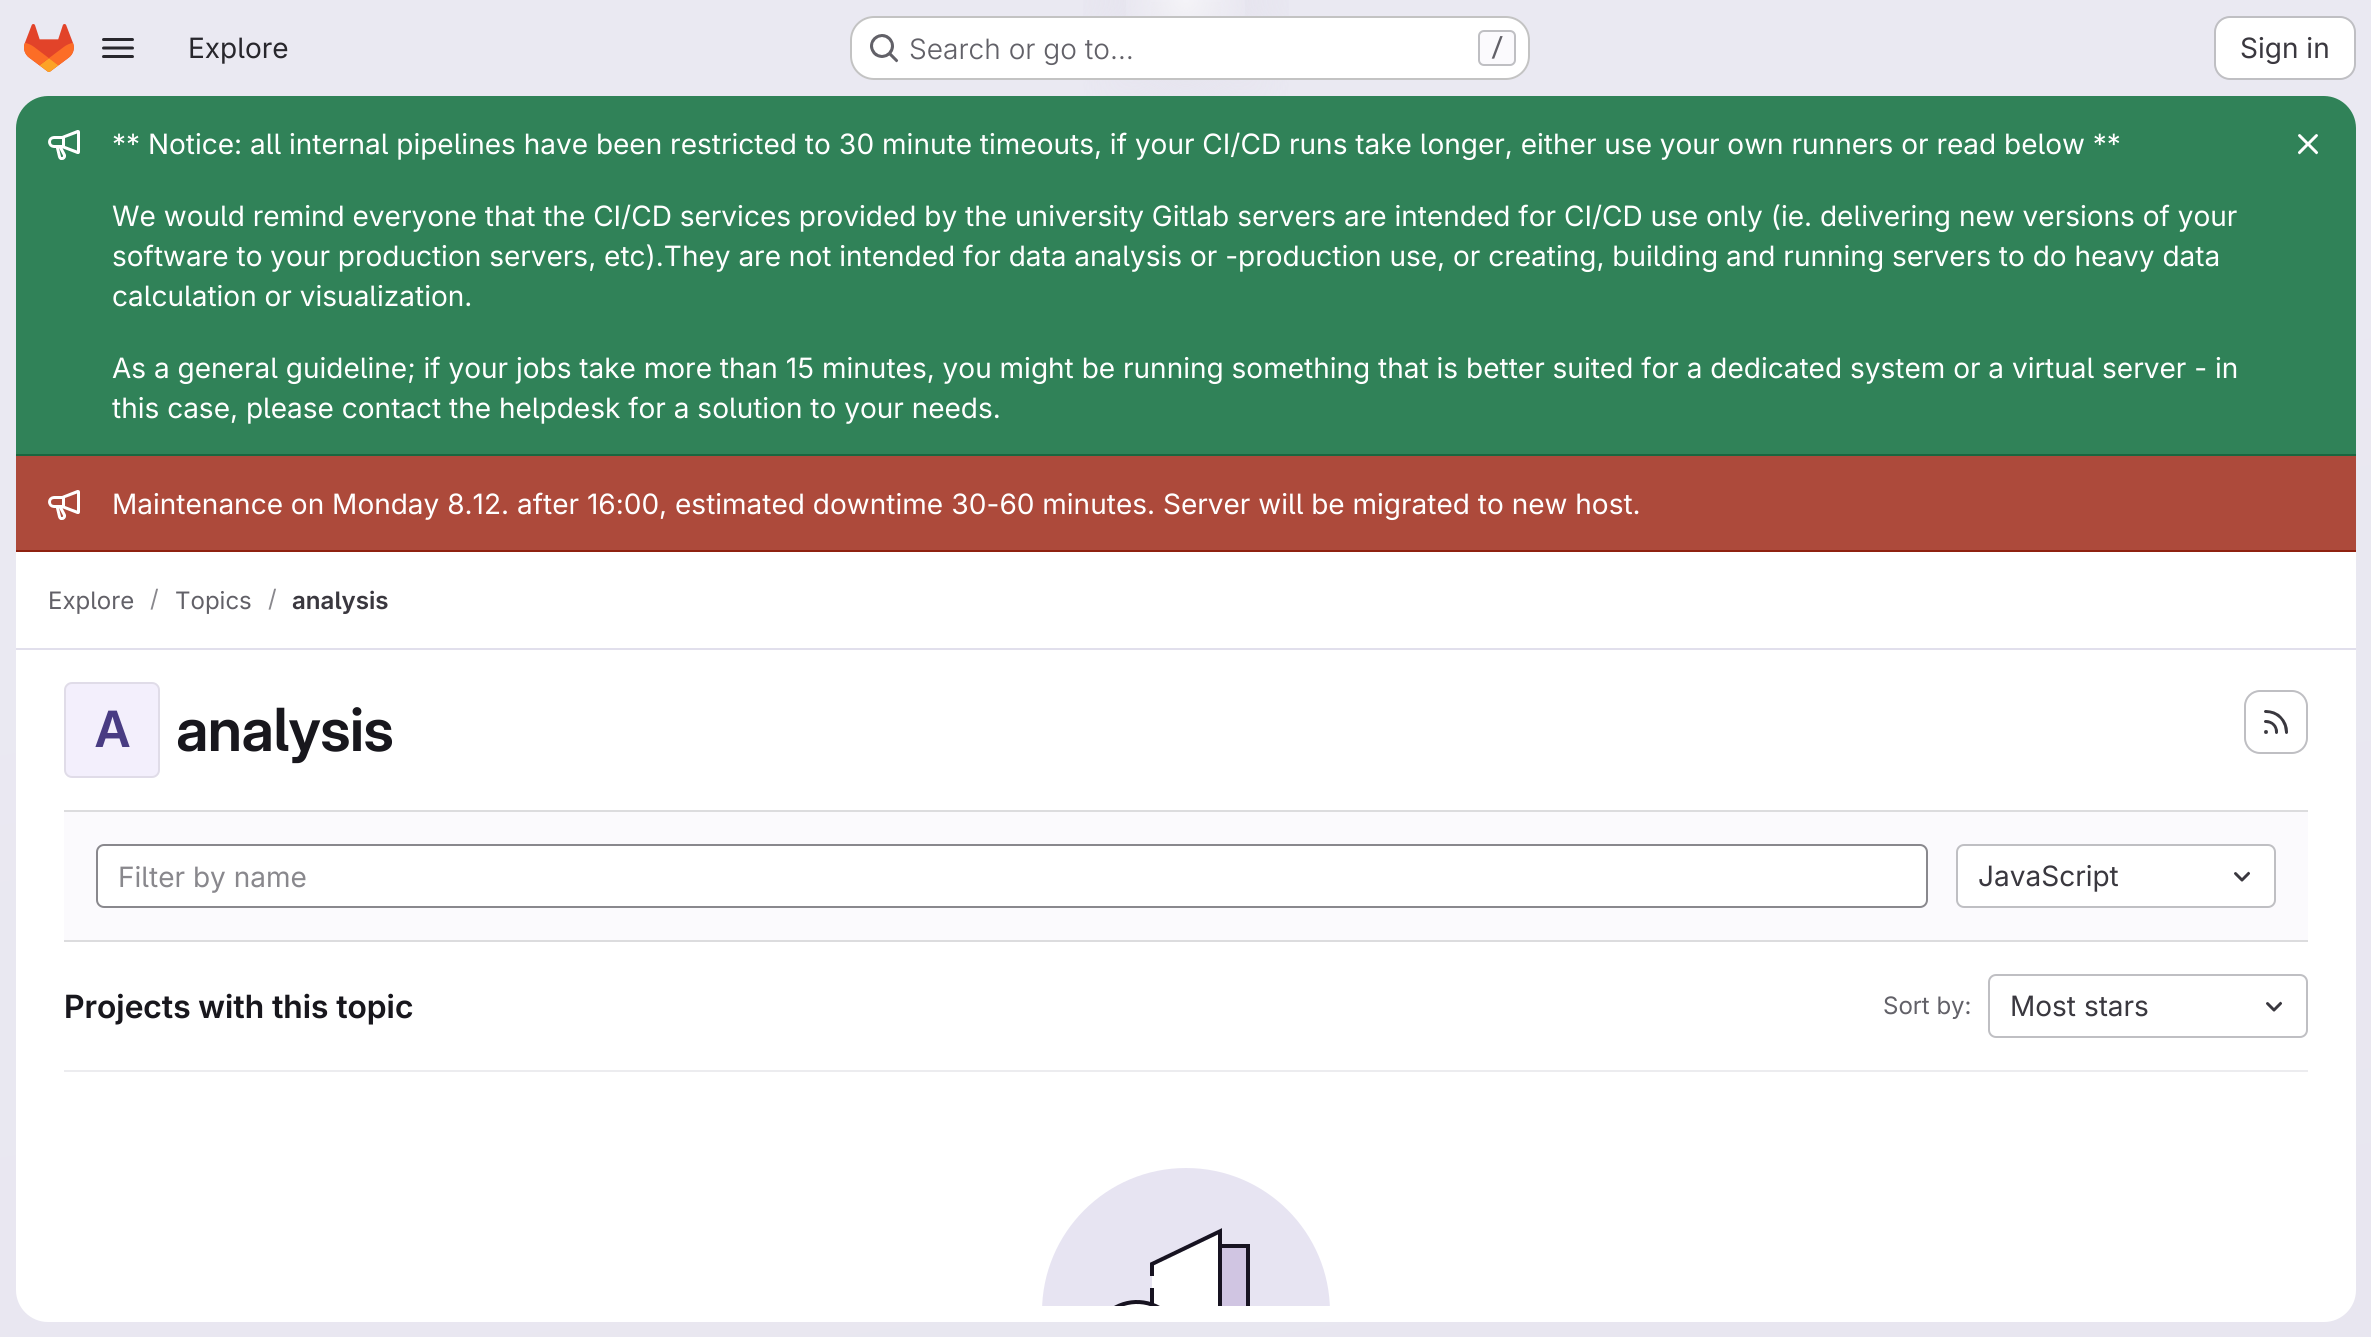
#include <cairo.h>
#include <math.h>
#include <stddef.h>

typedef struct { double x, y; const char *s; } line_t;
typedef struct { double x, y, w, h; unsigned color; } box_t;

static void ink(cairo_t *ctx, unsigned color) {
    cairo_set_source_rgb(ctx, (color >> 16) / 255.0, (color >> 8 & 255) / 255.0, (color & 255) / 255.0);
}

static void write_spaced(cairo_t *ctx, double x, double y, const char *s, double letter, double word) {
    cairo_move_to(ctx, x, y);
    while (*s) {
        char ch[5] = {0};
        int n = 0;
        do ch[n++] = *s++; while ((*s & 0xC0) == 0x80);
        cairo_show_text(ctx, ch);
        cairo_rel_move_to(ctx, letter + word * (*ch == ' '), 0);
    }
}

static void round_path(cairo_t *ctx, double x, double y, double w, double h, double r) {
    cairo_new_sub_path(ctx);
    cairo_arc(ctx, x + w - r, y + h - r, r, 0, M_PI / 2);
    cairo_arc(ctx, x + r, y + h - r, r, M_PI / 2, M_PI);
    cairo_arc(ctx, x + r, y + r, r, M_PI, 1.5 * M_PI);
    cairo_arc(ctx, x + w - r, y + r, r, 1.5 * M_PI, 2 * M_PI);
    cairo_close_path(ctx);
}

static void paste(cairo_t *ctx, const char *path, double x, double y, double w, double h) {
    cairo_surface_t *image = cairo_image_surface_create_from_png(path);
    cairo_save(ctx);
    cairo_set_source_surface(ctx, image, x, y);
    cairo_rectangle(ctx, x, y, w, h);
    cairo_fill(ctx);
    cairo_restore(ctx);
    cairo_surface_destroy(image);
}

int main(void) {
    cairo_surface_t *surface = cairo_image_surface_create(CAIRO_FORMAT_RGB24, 2371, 1337);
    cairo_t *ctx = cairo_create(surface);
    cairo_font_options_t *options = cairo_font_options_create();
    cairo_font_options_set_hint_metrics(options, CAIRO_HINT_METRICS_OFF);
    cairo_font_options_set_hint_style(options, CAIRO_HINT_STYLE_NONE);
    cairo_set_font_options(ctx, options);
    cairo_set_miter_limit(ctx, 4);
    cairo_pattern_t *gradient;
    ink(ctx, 0xFFFFFF);
    cairo_paint(ctx);
    gradient = cairo_pattern_create_linear(1336, 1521, 1036, -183);
    cairo_pattern_add_color_stop_rgba(gradient, 0, 0.91, 0.902, 0.941, 1);
    cairo_pattern_add_color_stop_rgba(gradient, 0.7, 0.918, 0.914, 0.949, 1);
    cairo_set_source(ctx, gradient);
    cairo_pattern_destroy(gradient);
    cairo_rectangle(ctx, 0, 0, 2371, 1337);
    cairo_fill(ctx);
    gradient = cairo_pattern_create_radial(0, 0, 0, 0, 0, 1);
    cairo_pattern_set_matrix(gradient, &(cairo_matrix_t){1.0 / 1186, 0, 0, 1.0 / 1338, -1.0 * 1186 / 1186, -1.0 * 0 / 1338});
    cairo_pattern_add_color_stop_rgba(gradient, 0, 0.894, 0.886, 0.929, 1);
    cairo_pattern_add_color_stop_rgba(gradient, 0.12, 0.894, 0.886, 0.929, 0);
    cairo_set_source(ctx, gradient);
    cairo_pattern_destroy(gradient);
    cairo_rectangle(ctx, 1083, 0, 206, 96);
    cairo_fill(ctx);
    gradient = cairo_pattern_create_radial(0, 0, 0, 0, 0, 1);
    cairo_pattern_set_matrix(gradient, &(cairo_matrix_t){1.0 / 1186, 0, 0, 1.0 / 1338, -1.0 * 1186 / 1186, -1.0 * 0 / 1338});
    cairo_pattern_add_color_stop_rgba(gradient, 0, 0.894, 0.886, 0.925, 1);
    cairo_pattern_add_color_stop_rgba(gradient, 0.08, 0.894, 0.886, 0.925, 0);
    cairo_set_source(ctx, gradient);
    cairo_pattern_destroy(gradient);
    cairo_rectangle(ctx, 1151, 2, 70, 22);
    cairo_fill(ctx);
    gradient = cairo_pattern_create_radial(1186, 0, 0, 1186, 0, 1788);
    cairo_pattern_add_color_stop_rgba(gradient, 0, 1, 1, 1, 0.6);
    cairo_pattern_add_color_stop_rgba(gradient, 0.04, 1, 1, 1, 0);
    cairo_set_source(ctx, gradient);
    cairo_pattern_destroy(gradient);
    cairo_rectangle(ctx, 1126, 0, 119, 16);
    cairo_fill(ctx);
    paste(ctx, "media/1.png", 24, 24, 50, 48);
    paste(ctx, "media/2.png", 102, 38, 32, 20);
    cairo_select_font_face(ctx, "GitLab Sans", CAIRO_FONT_SLANT_NORMAL, CAIRO_FONT_WEIGHT_NORMAL);
    cairo_set_font_size(ctx, 28);
    ink(ctx, 0x28272D);
    cairo_move_to(ctx, 188, 58);
    cairo_show_text(ctx, "Explore");
    ink(ctx, 0xFFFFFF);
    round_path(ctx, 850, 16, 680, 64, 24);
    cairo_fill(ctx);
    round_path(ctx, 851, 17, 678, 62, 23);
    cairo_set_source_rgba(ctx, 0.02, 0.02, 0.024, 0.24);
    cairo_stroke(ctx);
    paste(ctx, "media/3.png", 870, 34, 29, 29);
    cairo_select_font_face(ctx, "GitLab Sans Light", CAIRO_FONT_SLANT_NORMAL, CAIRO_FONT_WEIGHT_NORMAL);
    ink(ctx, 0x626168);
    cairo_move_to(ctx, 909, 59);
    cairo_show_text(ctx, "Search or go to…");
    ink(ctx, 0xFBFAFD);
    round_path(ctx, 1479, 31, 36, 34, 5);
    cairo_fill_preserve(ctx);
    ink(ctx, 0xBFBFC3);
    cairo_stroke(ctx);
    cairo_select_font_face(ctx, "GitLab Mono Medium", CAIRO_FONT_SLANT_NORMAL, CAIRO_FONT_WEIGHT_NORMAL);
    cairo_set_font_size(ctx, 24);
    ink(ctx, 0x626168);
    cairo_move_to(ctx, 1490, 56);
    cairo_show_text(ctx, "/");
    ink(ctx, 0xFFFFFF);
    round_path(ctx, 2215, 17, 140, 62, 15);
    cairo_fill_preserve(ctx);
    ink(ctx, 0xBFBFC3);
    cairo_stroke(ctx);
    cairo_select_font_face(ctx, "GitLab Sans", CAIRO_FONT_SLANT_NORMAL, CAIRO_FONT_WEIGHT_NORMAL);
    cairo_set_font_size(ctx, 28);
    ink(ctx, 0x3A383F);
    cairo_move_to(ctx, 2240, 58);
    cairo_show_text(ctx, "Sign in");
    ink(ctx, 0xFFFFFF);
    round_path(ctx, 16, 96, 2340, 1226, 32);
    cairo_fill(ctx);
    ink(ctx, 0x308258);
    cairo_new_path(ctx);
    cairo_move_to(ctx, 48, 96);
    cairo_line_to(ctx, 2324, 96);
    cairo_curve_to(ctx, 2341.5, 96, 2356, 110.5, 2356, 128);
    cairo_line_to(ctx, 2356, 456);
    cairo_line_to(ctx, 16, 456);
    cairo_line_to(ctx, 16, 128);
    cairo_curve_to(ctx, 16, 110.5, 30.5, 96, 48, 96);
    cairo_close_path(ctx);
    cairo_fill(ctx);
    ink(ctx, 0x1B653F);
    cairo_rectangle(ctx, 16, 454, 2340, 2);
    cairo_fill(ctx);
    paste(ctx, "media/4.png", 48, 130, 32, 30);
    ink(ctx, 0xFFFFFF);
    {
        static const line_t items[] = {
            {112, 154, "** Notice: all internal pipelines have been restricted to 30 minute timeouts, if your CI/CD runs take longer, either use your own runners or read below **"},
            {112, 226, "We would remind everyone that the CI/CD services provided by the university Gitlab servers are intended for CI/CD use only (ie. delivering new versions of your"},
            {112, 266, "software to your production servers, etc).They are not intended for data analysis or -production use, or creating, building and running servers to do heavy data"},
            {112, 306, "calculation or visualization."},
            {112, 378, "As a general guideline; if your jobs take more than 15 minutes, you might be running something that is better suited for a dedicated system or a virtual server - in"},
            {112, 418, "this case, please contact the helpdesk for a solution to your needs."},
        };
        for (size_t i = 0; i < sizeof items / sizeof *items; i++) {
            cairo_move_to(ctx, items[i].x, items[i].y);
            cairo_show_text(ctx, items[i].s);
        }
    }
    paste(ctx, "media/5.png", 2298, 134, 20, 21);
    ink(ctx, 0xAD4A3B);
    cairo_rectangle(ctx, 16, 456, 2340, 94);
    cairo_fill(ctx);
    ink(ctx, 0x8F2110);
    cairo_rectangle(ctx, 16, 550, 2340, 2);
    cairo_fill(ctx);
    paste(ctx, "media/6.png", 48, 490, 32, 30);
    ink(ctx, 0xFFFFFF);
    cairo_move_to(ctx, 112, 514);
    cairo_show_text(ctx, "Maintenance on Monday 8.12. after 16:00, estimated downtime 30-60 minutes. Server will be migrated to new host.");
    ink(ctx, 0xE1DFEC);
    cairo_rectangle(ctx, 16, 648, 2340, 2);
    cairo_fill(ctx);
    cairo_set_font_size(ctx, 24);
    ink(ctx, 0x626168);
    cairo_move_to(ctx, 48, 609);
    cairo_show_text(ctx, "Explore");
    ink(ctx, 0x89888D);
    cairo_move_to(ctx, 150, 607);
    cairo_show_text(ctx, "/");
    ink(ctx, 0x626168);
    cairo_move_to(ctx, 175, 609);
    cairo_show_text(ctx, "Topics");
    ink(ctx, 0x89888D);
    cairo_move_to(ctx, 268, 607);
    cairo_show_text(ctx, "/");
    cairo_select_font_face(ctx, "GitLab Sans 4 SemiBold", CAIRO_FONT_SLANT_NORMAL, CAIRO_FONT_WEIGHT_NORMAL);
    ink(ctx, 0x3A383F);
    cairo_move_to(ctx, 292, 609);
    cairo_show_text(ctx, "analysis");
    ink(ctx, 0xF3EFFC);
    round_path(ctx, 64, 682, 96, 96, 8);
    cairo_fill(ctx);
    round_path(ctx, 65, 683, 94, 94, 7);
    cairo_set_source_rgba(ctx, 0.02, 0.02, 0.024, 0.08);
    cairo_stroke(ctx);
    cairo_select_font_face(ctx, "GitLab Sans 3 SemiBold", CAIRO_FONT_SLANT_NORMAL, CAIRO_FONT_WEIGHT_NORMAL);
    cairo_set_font_size(ctx, 50);
    ink(ctx, 0x493C83);
    write_spaced(ctx, 95, 747, "A", -0.5, 0);
    cairo_select_font_face(ctx, "GitLab Sans SemiBold", CAIRO_FONT_SLANT_NORMAL, CAIRO_FONT_WEIGHT_NORMAL);
    cairo_set_font_size(ctx, 59.5);
    ink(ctx, 0x18171D);
    write_spaced(ctx, 176, 751, "analysis", -0.5, 0);
    round_path(ctx, 2245, 691, 62, 62, 15);
    ink(ctx, 0xBFBFC3);
    cairo_stroke(ctx);
    paste(ctx, "media/7.png", 2264, 710, 24, 24);
    {
        static const box_t items[] = {
            {64, 812, 2244, 128, 0xFBFAFD},
            {64, 810, 2244, 2, 0xDCDCDE},
            {64, 940, 2244, 2, 0xDCDCDE},
        };
        for (size_t i = 0; i < sizeof items / sizeof *items; i++) {
            ink(ctx, items[i].color);
            cairo_rectangle(ctx, items[i].x, items[i].y, items[i].w, items[i].h);
            cairo_fill(ctx);
        }
    }
    ink(ctx, 0xFFFFFF);
    round_path(ctx, 97, 845, 1830, 62, 7);
    cairo_fill_preserve(ctx);
    ink(ctx, 0x89888D);
    cairo_stroke(ctx);
    cairo_select_font_face(ctx, "GitLab Sans", CAIRO_FONT_SLANT_NORMAL, CAIRO_FONT_WEIGHT_NORMAL);
    cairo_set_font_size(ctx, 28);
    cairo_move_to(ctx, 118, 887);
    cairo_show_text(ctx, "Filter by name");
    ink(ctx, 0xFFFFFF);
    round_path(ctx, 1957, 845, 318, 62, 7);
    cairo_fill_preserve(ctx);
    ink(ctx, 0xBFBFC3);
    cairo_stroke(ctx);
    ink(ctx, 0x3A383F);
    cairo_move_to(ctx, 1978, 886);
    cairo_show_text(ctx, "JavaScript");
    paste(ctx, "media/8.png", 2234, 871, 16, 11);
    ink(ctx, 0xECECEF);
    cairo_rectangle(ctx, 64, 1070, 2244, 2);
    cairo_fill(ctx);
    cairo_select_font_face(ctx, "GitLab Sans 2 SemiBold", CAIRO_FONT_SLANT_NORMAL, CAIRO_FONT_WEIGHT_NORMAL);
    cairo_set_font_size(ctx, 32);
    ink(ctx, 0x18171D);
    cairo_move_to(ctx, 64, 1018);
    cairo_show_text(ctx, "Projects with this topic");
    cairo_select_font_face(ctx, "GitLab Sans", CAIRO_FONT_SLANT_NORMAL, CAIRO_FONT_WEIGHT_NORMAL);
    cairo_set_font_size(ctx, 24);
    ink(ctx, 0x626168);
    cairo_move_to(ctx, 1883, 1014);
    cairo_show_text(ctx, "Sort by:");
    round_path(ctx, 1989, 975, 318, 62, 7);
    ink(ctx, 0xBFBFC3);
    cairo_stroke(ctx);
    cairo_set_font_size(ctx, 28);
    ink(ctx, 0x3A383F);
    cairo_move_to(ctx, 2010, 1016);
    cairo_show_text(ctx, "Most stars");
    paste(ctx, "media/8.png", 2266, 1001, 16, 11);
    paste(ctx, "media/9.png", 1042, 1168, 288, 138);
    cairo_surface_write_to_png(surface, "image.png");
    cairo_font_options_destroy(options);
    cairo_destroy(ctx);
    cairo_surface_destroy(surface);
    return 0;
}
